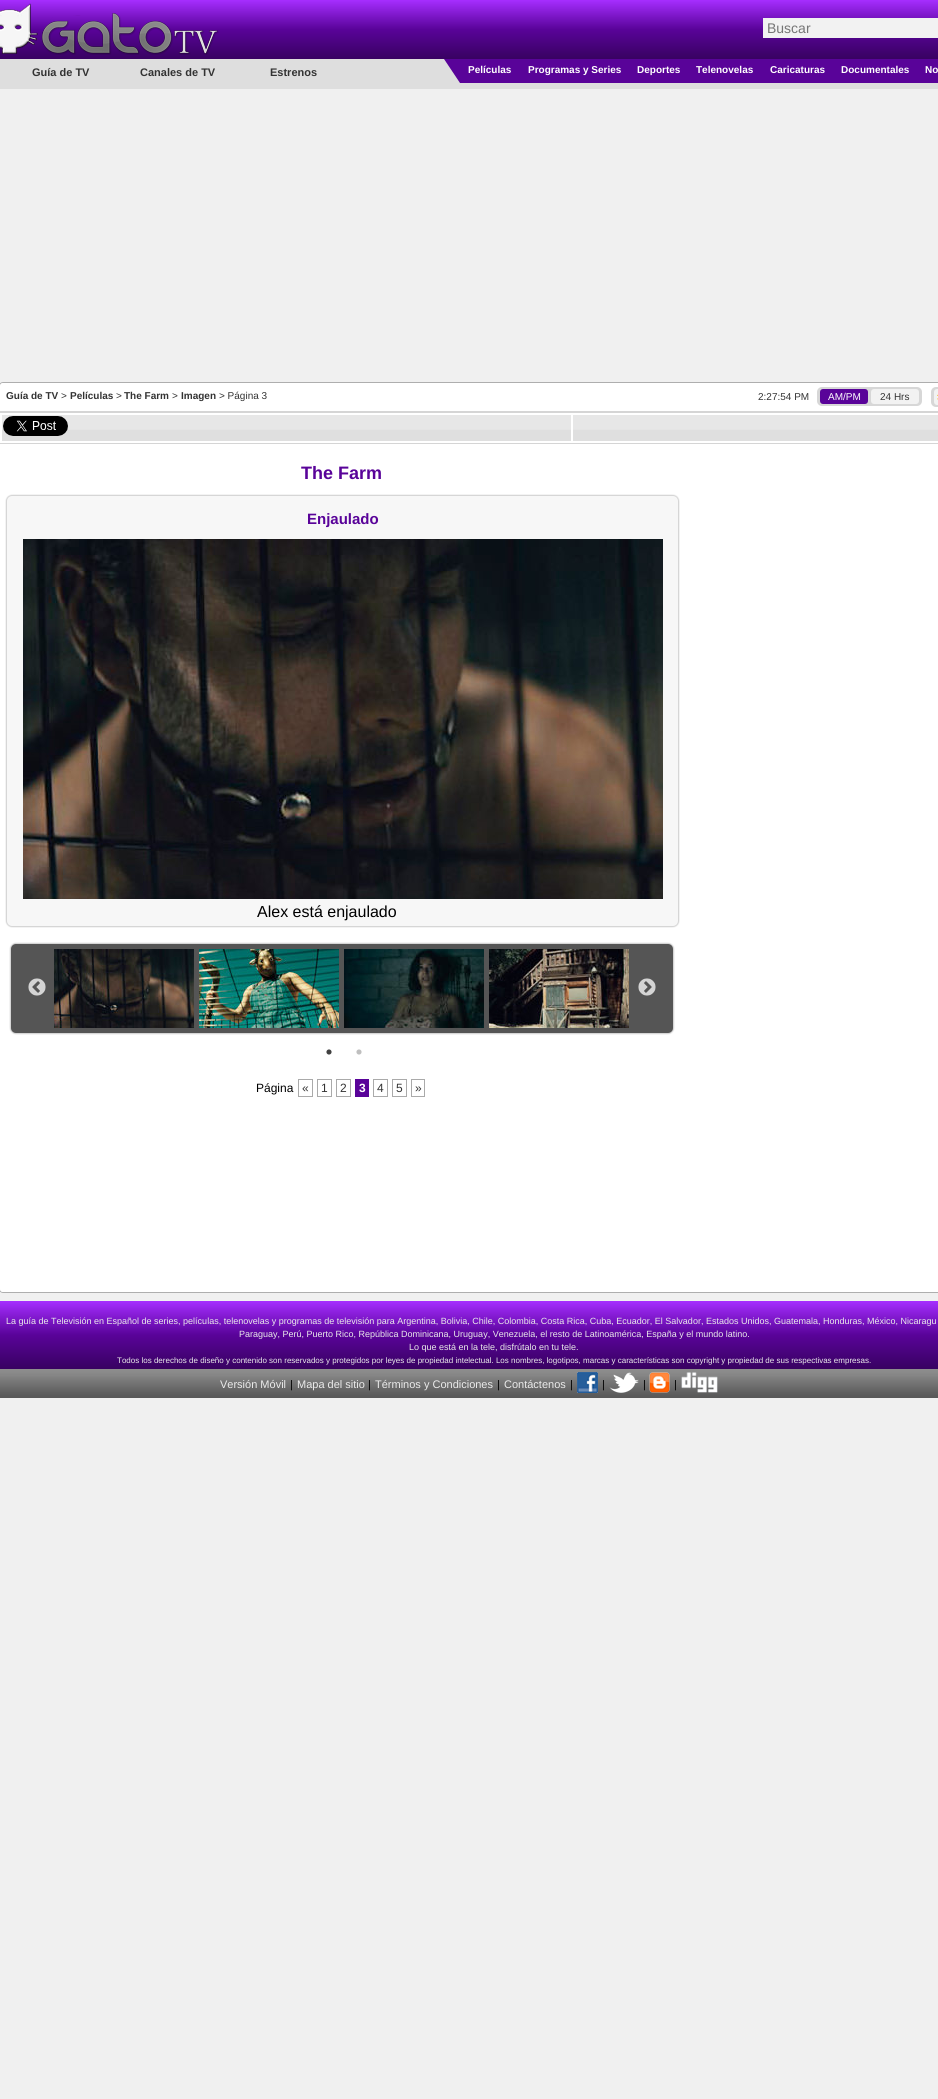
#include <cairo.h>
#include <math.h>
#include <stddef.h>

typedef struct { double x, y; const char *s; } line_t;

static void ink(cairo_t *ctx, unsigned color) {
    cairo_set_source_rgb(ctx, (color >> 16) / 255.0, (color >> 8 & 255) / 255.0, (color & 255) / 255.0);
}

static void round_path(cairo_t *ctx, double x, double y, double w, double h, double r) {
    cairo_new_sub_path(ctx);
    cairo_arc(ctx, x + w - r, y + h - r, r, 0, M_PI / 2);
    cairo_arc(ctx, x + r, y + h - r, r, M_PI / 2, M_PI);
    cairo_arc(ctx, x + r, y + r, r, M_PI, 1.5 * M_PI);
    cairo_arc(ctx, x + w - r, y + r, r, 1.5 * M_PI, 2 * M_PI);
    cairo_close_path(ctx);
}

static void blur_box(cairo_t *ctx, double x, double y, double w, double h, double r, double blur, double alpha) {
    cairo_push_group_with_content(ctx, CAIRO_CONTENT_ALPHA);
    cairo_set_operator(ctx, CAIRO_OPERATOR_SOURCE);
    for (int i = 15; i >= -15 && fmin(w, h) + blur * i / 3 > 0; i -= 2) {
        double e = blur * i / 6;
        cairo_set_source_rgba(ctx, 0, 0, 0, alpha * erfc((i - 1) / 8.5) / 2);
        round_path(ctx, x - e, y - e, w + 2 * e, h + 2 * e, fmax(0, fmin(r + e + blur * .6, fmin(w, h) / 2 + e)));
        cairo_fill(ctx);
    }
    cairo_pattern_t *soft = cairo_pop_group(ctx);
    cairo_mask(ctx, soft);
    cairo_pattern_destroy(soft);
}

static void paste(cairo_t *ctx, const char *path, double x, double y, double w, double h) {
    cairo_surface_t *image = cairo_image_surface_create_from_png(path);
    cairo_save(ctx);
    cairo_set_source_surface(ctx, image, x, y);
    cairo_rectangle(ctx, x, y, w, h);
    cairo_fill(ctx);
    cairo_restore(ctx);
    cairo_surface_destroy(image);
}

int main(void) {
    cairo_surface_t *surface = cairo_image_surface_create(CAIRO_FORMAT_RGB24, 938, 2099);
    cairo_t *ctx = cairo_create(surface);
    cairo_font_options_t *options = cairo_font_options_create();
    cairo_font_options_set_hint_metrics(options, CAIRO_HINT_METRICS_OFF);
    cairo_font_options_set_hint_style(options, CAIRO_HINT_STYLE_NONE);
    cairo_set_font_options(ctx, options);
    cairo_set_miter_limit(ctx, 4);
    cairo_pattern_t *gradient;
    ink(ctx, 0xF0F0F0);
    cairo_paint(ctx);
    gradient = cairo_pattern_create_linear(508, 0, 508, 59);
    cairo_pattern_add_color_stop_rgba(gradient, 0, 0.651, 0.18, 1, 1);
    cairo_pattern_add_color_stop_rgba(gradient, 0.5, 0.349, 0.012, 0.6, 1);
    cairo_pattern_add_color_stop_rgba(gradient, 1, 0.22, 0.008, 0.38, 1);
    cairo_set_source(ctx, gradient);
    cairo_pattern_destroy(gradient);
    cairo_rectangle(ctx, 0, 0, 938, 59);
    cairo_fill(ctx);
    paste(ctx, "media/1.png", 0, 3, 219, 52);
    ink(ctx, 0xF2F2F2);
    cairo_rectangle(ctx, 763, 18, 175, 20);
    cairo_fill(ctx);
    cairo_select_font_face(ctx, "Liberation Sans", CAIRO_FONT_SLANT_NORMAL, CAIRO_FONT_WEIGHT_NORMAL);
    cairo_set_font_size(ctx, 14);
    ink(ctx, 0x757575);
    cairo_move_to(ctx, 767, 33);
    cairo_show_text(ctx, "Buscar");
    ink(ctx, 0xDEDEDE);
    cairo_rectangle(ctx, 0, 59, 938, 30);
    cairo_fill(ctx);
    cairo_select_font_face(ctx, "Liberation Sans", CAIRO_FONT_SLANT_NORMAL, CAIRO_FONT_WEIGHT_BOLD);
    cairo_set_font_size(ctx, 11);
    ink(ctx, 0x333333);
    {
        static const line_t items[] = {
            {32, 76, "Guía de TV"},
            {140, 76, "Canales de TV"},
            {270, 76, "Estrenos"},
        };
        for (size_t i = 0; i < sizeof items / sizeof *items; i++) {
            cairo_move_to(ctx, items[i].x, items[i].y);
            cairo_show_text(ctx, items[i].s);
        }
    }
    ink(ctx, 0x590399);
    cairo_new_path(ctx);
    cairo_move_to(ctx, 444, 59);
    cairo_line_to(ctx, 460, 59);
    cairo_line_to(ctx, 460, 83);
    cairo_close_path(ctx);
    cairo_fill(ctx);
    cairo_rectangle(ctx, 460, 59, 478, 24);
    cairo_fill(ctx);
    cairo_set_font_size(ctx, 10);
    ink(ctx, 0xFFFFFF);
    {
        static const line_t items[] = {
            {468, 73, "Películas"},
            {528, 73, "Programas y Series"},
            {637, 73, "Deportes"},
            {696, 73, "Telenovelas"},
            {770, 73, "Caricaturas"},
            {841, 73, "Documentales"},
            {925, 73, "No"},
        };
        for (size_t i = 0; i < sizeof items / sizeof *items; i++) {
            cairo_move_to(ctx, items[i].x, items[i].y);
            cairo_show_text(ctx, items[i].s);
        }
    }
    round_path(ctx, -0.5, 382.5, 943, 910, 3.5);
    ink(ctx, 0xAEAEAE);
    cairo_set_line_width(ctx, 1);
    cairo_stroke(ctx);
    ink(ctx, 0xFFFFFF);
    round_path(ctx, 0, 383, 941, 909, 3);
    cairo_fill(ctx);
    ink(ctx, 0x333333);
    cairo_move_to(ctx, 6, 399);
    cairo_show_text(ctx, "Guía de TV");
    cairo_select_font_face(ctx, "Liberation Sans", CAIRO_FONT_SLANT_NORMAL, CAIRO_FONT_WEIGHT_NORMAL);
    cairo_move_to(ctx, 61, 399);
    cairo_show_text(ctx, ">");
    cairo_select_font_face(ctx, "Liberation Sans", CAIRO_FONT_SLANT_NORMAL, CAIRO_FONT_WEIGHT_BOLD);
    cairo_move_to(ctx, 70, 399);
    cairo_show_text(ctx, "Películas");
    cairo_select_font_face(ctx, "Liberation Sans", CAIRO_FONT_SLANT_NORMAL, CAIRO_FONT_WEIGHT_NORMAL);
    cairo_move_to(ctx, 116, 399);
    cairo_show_text(ctx, ">");
    cairo_select_font_face(ctx, "Liberation Sans", CAIRO_FONT_SLANT_NORMAL, CAIRO_FONT_WEIGHT_BOLD);
    cairo_move_to(ctx, 124, 399);
    cairo_show_text(ctx, "The Farm");
    cairo_select_font_face(ctx, "Liberation Sans", CAIRO_FONT_SLANT_NORMAL, CAIRO_FONT_WEIGHT_NORMAL);
    cairo_move_to(ctx, 172, 399);
    cairo_show_text(ctx, ">");
    cairo_select_font_face(ctx, "Liberation Sans", CAIRO_FONT_SLANT_NORMAL, CAIRO_FONT_WEIGHT_BOLD);
    cairo_move_to(ctx, 181, 399);
    cairo_show_text(ctx, "Imagen");
    cairo_select_font_face(ctx, "Liberation Sans", CAIRO_FONT_SLANT_NORMAL, CAIRO_FONT_WEIGHT_NORMAL);
    cairo_move_to(ctx, 219, 399);
    cairo_show_text(ctx, "> Página 3");
    cairo_move_to(ctx, 758, 400);
    cairo_show_text(ctx, "2:27:54 PM");
    ink(ctx, 0xD7D7D7);
    round_path(ctx, 817, 387, 105, 19, 5);
    cairo_fill(ctx);
    ink(ctx, 0x590399);
    round_path(ctx, 820, 389, 48, 15, 3);
    cairo_fill(ctx);
    ink(ctx, 0xFFFFFF);
    cairo_move_to(ctx, 828, 400);
    cairo_show_text(ctx, "AM/PM");
    ink(ctx, 0xF2F2F2);
    round_path(ctx, 871, 389, 48, 15, 3);
    cairo_fill(ctx);
    ink(ctx, 0x333333);
    cairo_move_to(ctx, 880, 400);
    cairo_show_text(ctx, "24 Hrs");
    ink(ctx, 0xD7D7D7);
    round_path(ctx, 931, 387, 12, 20, 5);
    cairo_fill(ctx);
    ink(ctx, 0xF2F2F2);
    round_path(ctx, 934, 389, 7, 16, 3);
    cairo_fill(ctx);
    paste(ctx, "media/2.png", 937, 394, 1, 6);
    ink(ctx, 0xD5D5D5);
    cairo_rectangle(ctx, 0, 411, 938, 2);
    cairo_fill(ctx);
    paste(ctx, "media/3.png", 2, 415, 569, 26);
    paste(ctx, "media/4.png", 3, 416, 65, 20);
    paste(ctx, "media/5.png", 573, 415, 365, 26);
    cairo_rectangle(ctx, 0, 443, 938, 1);
    cairo_fill(ctx);
    cairo_select_font_face(ctx, "Liberation Sans", CAIRO_FONT_SLANT_NORMAL, CAIRO_FONT_WEIGHT_BOLD);
    cairo_set_font_size(ctx, 18);
    ink(ctx, 0x590399);
    cairo_move_to(ctx, 301, 479);
    cairo_show_text(ctx, "The Farm");
    ink(ctx, 0xD0D0D0);
    blur_box(ctx, 6, 495, 673, 432, 6, 0.5, 1);
    ink(ctx, 0xF7F7F7);
    round_path(ctx, 7, 496, 671, 430, 5);
    cairo_fill(ctx);
    cairo_set_font_size(ctx, 15);
    ink(ctx, 0x590399);
    cairo_move_to(ctx, 307, 524);
    cairo_show_text(ctx, "Enjaulado");
    paste(ctx, "media/6.png", 23, 539, 640, 360);
    cairo_select_font_face(ctx, "Liberation Sans", CAIRO_FONT_SLANT_NORMAL, CAIRO_FONT_WEIGHT_NORMAL);
    cairo_set_font_size(ctx, 16);
    ink(ctx, 0x000000);
    cairo_move_to(ctx, 257, 917);
    cairo_show_text(ctx, "Alex está enjaulado");
    ink(ctx, 0xD0D0D0);
    blur_box(ctx, 10, 943, 664, 91, 6, 0.5, 1);
    ink(ctx, 0x555555);
    round_path(ctx, 11, 944, 662, 89, 5);
    cairo_fill(ctx);
    paste(ctx, "media/7.png", 28, 978, 18, 18);
    paste(ctx, "media/8.png", 54, 949, 140, 79);
    paste(ctx, "media/9.png", 199, 949, 140, 79);
    paste(ctx, "media/10.png", 344, 949, 140, 79);
    paste(ctx, "media/11.png", 489, 949, 140, 79);
    paste(ctx, "media/12.png", 638, 978, 18, 18);
    paste(ctx, "media/13.png", 326, 1049, 6, 6);
    paste(ctx, "media/14.png", 356, 1049, 6, 6);
    cairo_set_font_size(ctx, 12);
    ink(ctx, 0x000000);
    cairo_move_to(ctx, 256, 1092);
    cairo_show_text(ctx, "Página");
    cairo_rectangle(ctx, 298.5, 1079.5, 14, 17);
    ink(ctx, 0xAAAAAA);
    cairo_stroke(ctx);
    ink(ctx, 0x333333);
    cairo_move_to(ctx, 302, 1092);
    cairo_show_text(ctx, "«");
    cairo_rectangle(ctx, 317.5, 1079.5, 14, 17);
    ink(ctx, 0xAAAAAA);
    cairo_stroke(ctx);
    ink(ctx, 0x333333);
    cairo_move_to(ctx, 321, 1092);
    cairo_show_text(ctx, "1");
    cairo_rectangle(ctx, 336.5, 1079.5, 14, 17);
    ink(ctx, 0xAAAAAA);
    cairo_stroke(ctx);
    ink(ctx, 0x333333);
    cairo_move_to(ctx, 340, 1092);
    cairo_show_text(ctx, "2");
    ink(ctx, 0x590399);
    cairo_rectangle(ctx, 355, 1079, 14, 18);
    cairo_fill(ctx);
    cairo_select_font_face(ctx, "Liberation Sans", CAIRO_FONT_SLANT_NORMAL, CAIRO_FONT_WEIGHT_BOLD);
    ink(ctx, 0xFFFFFF);
    cairo_move_to(ctx, 359, 1092);
    cairo_show_text(ctx, "3");
    cairo_rectangle(ctx, 373.5, 1079.5, 14, 17);
    ink(ctx, 0xAAAAAA);
    cairo_stroke(ctx);
    cairo_select_font_face(ctx, "Liberation Sans", CAIRO_FONT_SLANT_NORMAL, CAIRO_FONT_WEIGHT_NORMAL);
    ink(ctx, 0x333333);
    cairo_move_to(ctx, 377, 1092);
    cairo_show_text(ctx, "4");
    cairo_rectangle(ctx, 392.5, 1079.5, 14, 17);
    ink(ctx, 0xAAAAAA);
    cairo_stroke(ctx);
    ink(ctx, 0x333333);
    cairo_move_to(ctx, 396, 1092);
    cairo_show_text(ctx, "5");
    cairo_rectangle(ctx, 411.5, 1079.5, 13, 17);
    ink(ctx, 0xAAAAAA);
    cairo_stroke(ctx);
    ink(ctx, 0x333333);
    cairo_move_to(ctx, 415, 1092);
    cairo_show_text(ctx, "»");
    gradient = cairo_pattern_create_linear(469, 1301, 469, 1369);
    cairo_pattern_add_color_stop_rgba(gradient, 0, 0.651, 0.18, 1, 1);
    cairo_pattern_add_color_stop_rgba(gradient, 0.5, 0.349, 0.012, 0.6, 1);
    cairo_pattern_add_color_stop_rgba(gradient, 1, 0.22, 0.008, 0.38, 1);
    cairo_set_source(ctx, gradient);
    cairo_pattern_destroy(gradient);
    cairo_rectangle(ctx, 0, 1301, 938, 68);
    cairo_fill(ctx);
    cairo_set_font_size(ctx, 9);
    ink(ctx, 0xEBEBEB);
    {
        static const line_t items[] = {
            {6, 1324, "La guía de Televisión en Español de series, películas, telenovelas y programas de televisión para Argentina, Bolivia, Chile, Colombia, Costa Rica, Cuba, Ecuador, El Salvador, Estados Unidos, Guatemala, Honduras, México, Nicaragu"},
            {239, 1337, "Paraguay, Perú, Puerto Rico, República Dominicana, Uruguay, Venezuela, el resto de Latinoamérica, España y el mundo latino."},
            {409, 1350, "Lo que está en la tele, disfrútalo en tu tele."},
        };
        for (size_t i = 0; i < sizeof items / sizeof *items; i++) {
            cairo_move_to(ctx, items[i].x, items[i].y);
            cairo_show_text(ctx, items[i].s);
        }
    }
    cairo_set_font_size(ctx, 8);
    cairo_move_to(ctx, 117, 1363);
    cairo_show_text(ctx, "Todos los derechos de diseño y contenido son reservados y protegidos por leyes de propiedad intelectual. Los nombres, logotipos, marcas y características son copyright y propiedad de sus respectivas empresas.");
    paste(ctx, "media/15.png", 0, 1369, 938, 29);
    cairo_set_font_size(ctx, 11);
    cairo_move_to(ctx, 220, 1388);
    cairo_show_text(ctx, "Versión Móvil");
    ink(ctx, 0x000000);
    cairo_move_to(ctx, 290, 1388);
    cairo_show_text(ctx, "|");
    ink(ctx, 0xEBEBEB);
    cairo_move_to(ctx, 297, 1388);
    cairo_show_text(ctx, "Mapa del sitio");
    ink(ctx, 0x000000);
    cairo_move_to(ctx, 368, 1388);
    cairo_show_text(ctx, "|");
    ink(ctx, 0xEBEBEB);
    cairo_move_to(ctx, 375, 1388);
    cairo_show_text(ctx, "Términos y Condiciones");
    ink(ctx, 0x000000);
    cairo_move_to(ctx, 497, 1388);
    cairo_show_text(ctx, "|");
    ink(ctx, 0xEBEBEB);
    cairo_move_to(ctx, 504, 1388);
    cairo_show_text(ctx, "Contáctenos");
    ink(ctx, 0x000000);
    cairo_move_to(ctx, 570, 1388);
    cairo_show_text(ctx, "|");
    paste(ctx, "media/16.png", 577, 1372, 21, 21);
    cairo_move_to(ctx, 602, 1388);
    cairo_show_text(ctx, "|");
    paste(ctx, "media/17.png", 609, 1372, 30, 21);
    cairo_move_to(ctx, 643, 1388);
    cairo_show_text(ctx, "|");
    paste(ctx, "media/18.png", 649, 1372, 21, 21);
    cairo_move_to(ctx, 674, 1388);
    cairo_show_text(ctx, "|");
    paste(ctx, "media/19.png", 681, 1372, 37, 21);
    cairo_surface_write_to_png(surface, "image.png");
    cairo_font_options_destroy(options);
    cairo_destroy(ctx);
    cairo_surface_destroy(surface);
    return 0;
}
